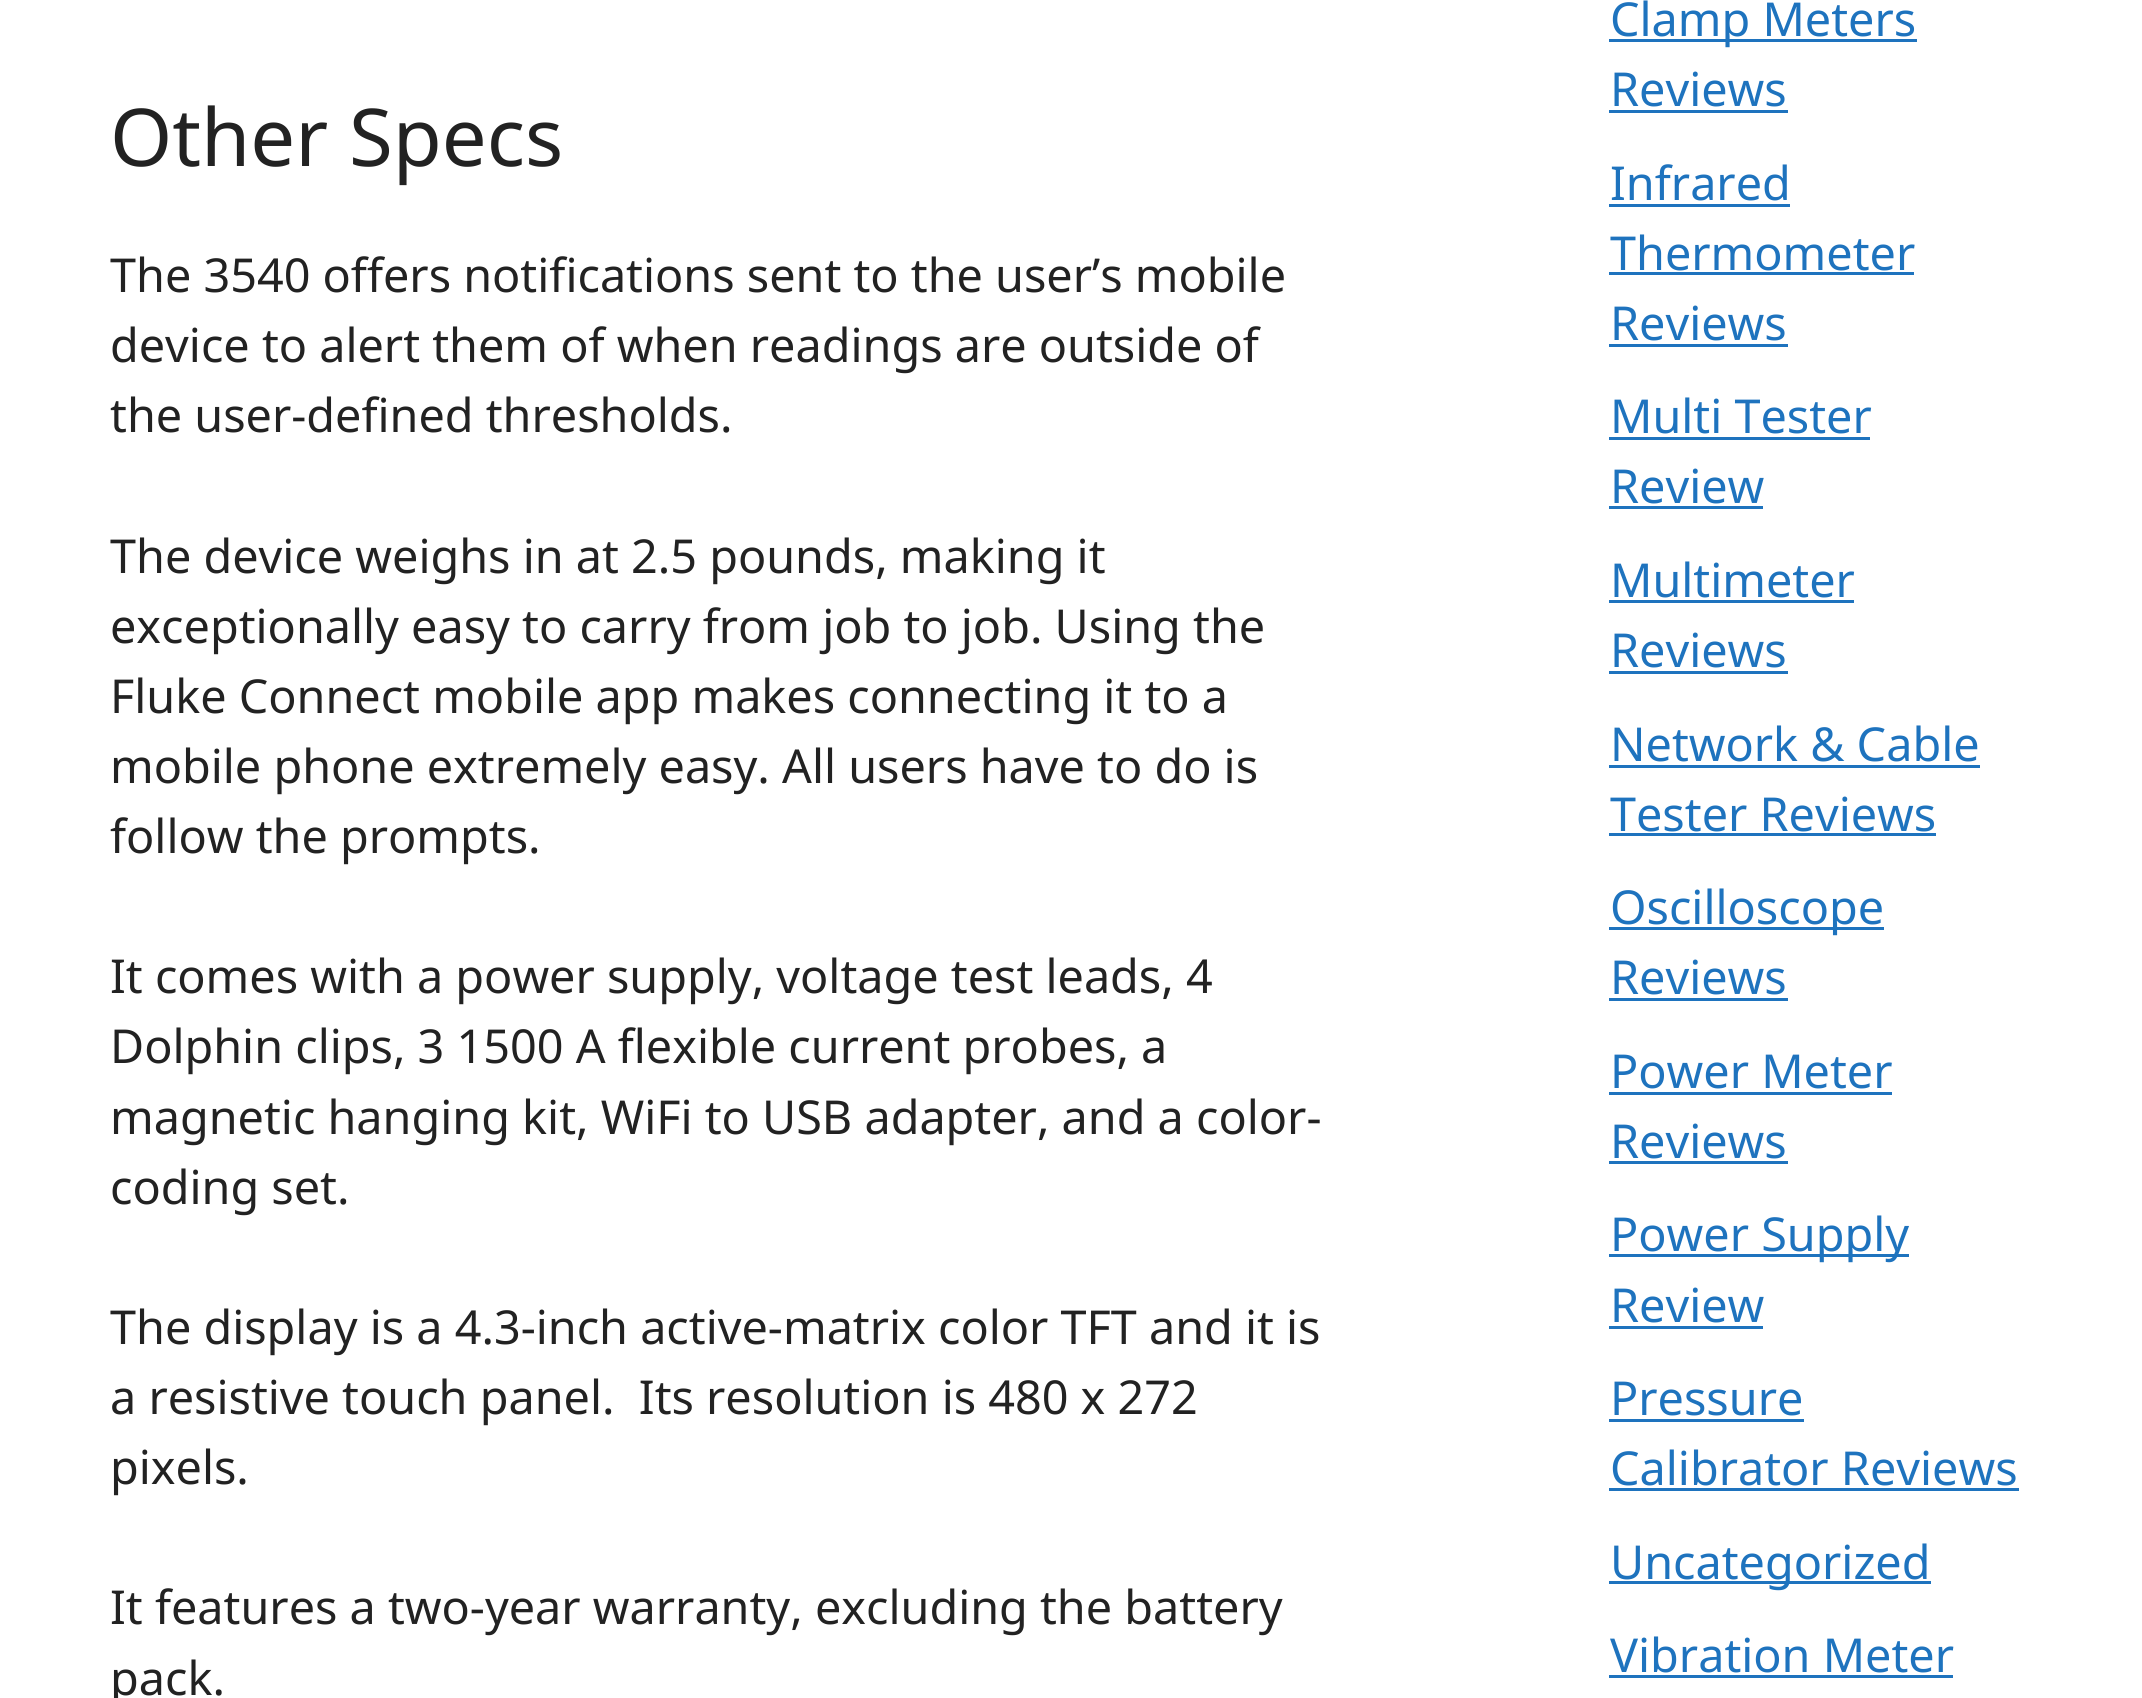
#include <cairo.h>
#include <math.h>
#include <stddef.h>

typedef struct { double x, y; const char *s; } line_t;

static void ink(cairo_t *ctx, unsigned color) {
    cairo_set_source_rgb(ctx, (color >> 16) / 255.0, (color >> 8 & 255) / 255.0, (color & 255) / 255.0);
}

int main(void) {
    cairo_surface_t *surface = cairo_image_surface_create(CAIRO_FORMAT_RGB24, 2142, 1698);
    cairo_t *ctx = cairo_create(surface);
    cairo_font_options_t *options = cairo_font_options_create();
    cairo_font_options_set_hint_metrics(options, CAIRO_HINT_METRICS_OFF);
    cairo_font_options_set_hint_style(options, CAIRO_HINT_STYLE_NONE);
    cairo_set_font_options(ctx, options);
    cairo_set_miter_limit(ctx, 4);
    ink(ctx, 0xFFFFFF);
    cairo_paint(ctx);
    cairo_select_font_face(ctx, "Noto Sans", CAIRO_FONT_SLANT_NORMAL, CAIRO_FONT_WEIGHT_NORMAL);
    cairo_set_font_size(ctx, 79.75);
    ink(ctx, 0x222222);
    cairo_move_to(ctx, 110, 166);
    cairo_show_text(ctx, "Other Specs");
    cairo_set_font_size(ctx, 46.75);
    {
        static const line_t items[] = {
            {110, 292, "The 3540 offers notifications sent to the user’s mobile"},
            {110, 362, "device to alert them of when readings are outside of"},
            {110, 432, "the user-defined thresholds."},
            {110, 573, "The device weighs in at 2.5 pounds, making it"},
            {110, 643, "exceptionally easy to carry from job to job. Using the"},
            {110, 713, "Fluke Connect mobile app makes connecting it to a"},
            {110, 783, "mobile phone extremely easy. All users have to do is"},
            {110, 853, "follow the prompts."},
            {110, 993, "It comes with a power supply, voltage test leads, 4"},
            {110, 1063, "Dolphin clips, 3 1500 A flexible current probes, a"},
            {110, 1134, "magnetic hanging kit, WiFi to USB adapter, and a color-"},
            {110, 1204, "coding set."},
            {110, 1344, "The display is a 4.3-inch active-matrix color TFT and it is"},
            {110, 1414, "a resistive touch panel.  Its resolution is 480 x 272"},
            {110, 1484, "pixels."},
            {110, 1624, "It features a two-year warranty, excluding the battery"},
            {110, 1695, "pack."},
        };
        for (size_t i = 0; i < sizeof items / sizeof *items; i++) {
            cairo_move_to(ctx, items[i].x, items[i].y);
            cairo_show_text(ctx, items[i].s);
        }
    }
    ink(ctx, 0x1E73BE);
    cairo_rectangle(ctx, 1609, 39, 308, 3);
    cairo_fill(ctx);
    cairo_move_to(ctx, 1610, 36);
    cairo_show_text(ctx, "Clamp Meters");
    cairo_move_to(ctx, 1610, 106);
    cairo_show_text(ctx, "Reviews");
    cairo_rectangle(ctx, 1609, 110, 179, 3);
    cairo_fill(ctx);
    cairo_move_to(ctx, 1610, 200);
    cairo_show_text(ctx, "Infrared");
    cairo_rectangle(ctx, 1609, 204, 181, 3);
    cairo_fill(ctx);
    cairo_move_to(ctx, 1610, 270);
    cairo_show_text(ctx, "Thermometer");
    cairo_rectangle(ctx, 1609, 272, 305, 3);
    cairo_fill(ctx);
    cairo_move_to(ctx, 1610, 340);
    cairo_show_text(ctx, "Reviews");
    cairo_rectangle(ctx, 1609, 344, 179, 3);
    cairo_fill(ctx);
    cairo_move_to(ctx, 1610, 433);
    cairo_show_text(ctx, "Multi Tester");
    cairo_rectangle(ctx, 1609, 437, 261, 3);
    cairo_fill(ctx);
    cairo_move_to(ctx, 1610, 503);
    cairo_show_text(ctx, "Review");
    cairo_rectangle(ctx, 1609, 506, 154, 3);
    cairo_fill(ctx);
    cairo_move_to(ctx, 1610, 597);
    cairo_show_text(ctx, "Multimeter");
    cairo_rectangle(ctx, 1609, 600, 245, 3);
    cairo_fill(ctx);
    cairo_move_to(ctx, 1610, 667);
    cairo_show_text(ctx, "Reviews");
    cairo_rectangle(ctx, 1609, 671, 179, 3);
    cairo_fill(ctx);
    cairo_move_to(ctx, 1610, 761);
    cairo_show_text(ctx, "Network & Cable");
    cairo_rectangle(ctx, 1609, 765, 371, 3);
    cairo_fill(ctx);
    cairo_move_to(ctx, 1610, 831);
    cairo_show_text(ctx, "Tester Reviews");
    cairo_rectangle(ctx, 1609, 833, 327, 3);
    cairo_fill(ctx);
    cairo_rectangle(ctx, 1609, 927, 275, 3);
    cairo_fill(ctx);
    cairo_move_to(ctx, 1610, 924);
    cairo_show_text(ctx, "Oscilloscope");
    cairo_move_to(ctx, 1610, 994);
    cairo_show_text(ctx, "Reviews");
    cairo_rectangle(ctx, 1609, 998, 179, 3);
    cairo_fill(ctx);
    cairo_move_to(ctx, 1610, 1088);
    cairo_show_text(ctx, "Power Meter");
    cairo_rectangle(ctx, 1609, 1092, 283, 3);
    cairo_fill(ctx);
    cairo_move_to(ctx, 1610, 1158);
    cairo_show_text(ctx, "Reviews");
    cairo_rectangle(ctx, 1609, 1161, 179, 3);
    cairo_fill(ctx);
    cairo_rectangle(ctx, 1609, 1254, 300, 3);
    cairo_fill(ctx);
    cairo_move_to(ctx, 1610, 1251);
    cairo_show_text(ctx, "Power Supply");
    cairo_move_to(ctx, 1610, 1322);
    cairo_show_text(ctx, "Review");
    cairo_rectangle(ctx, 1609, 1326, 154, 3);
    cairo_fill(ctx);
    cairo_move_to(ctx, 1610, 1415);
    cairo_show_text(ctx, "Pressure");
    cairo_rectangle(ctx, 1609, 1419, 195, 3);
    cairo_fill(ctx);
    cairo_move_to(ctx, 1610, 1485);
    cairo_show_text(ctx, "Calibrator Reviews");
    cairo_rectangle(ctx, 1609, 1488, 410, 3);
    cairo_fill(ctx);
    cairo_rectangle(ctx, 1609, 1581, 322, 3);
    cairo_fill(ctx);
    cairo_move_to(ctx, 1610, 1579);
    cairo_show_text(ctx, "Uncategorized");
    cairo_move_to(ctx, 1610, 1672);
    cairo_show_text(ctx, "Vibration Meter");
    cairo_rectangle(ctx, 1609, 1675, 344, 3);
    cairo_fill(ctx);
    cairo_surface_write_to_png(surface, "image.png");
    cairo_font_options_destroy(options);
    cairo_destroy(ctx);
    cairo_surface_destroy(surface);
    return 0;
}
